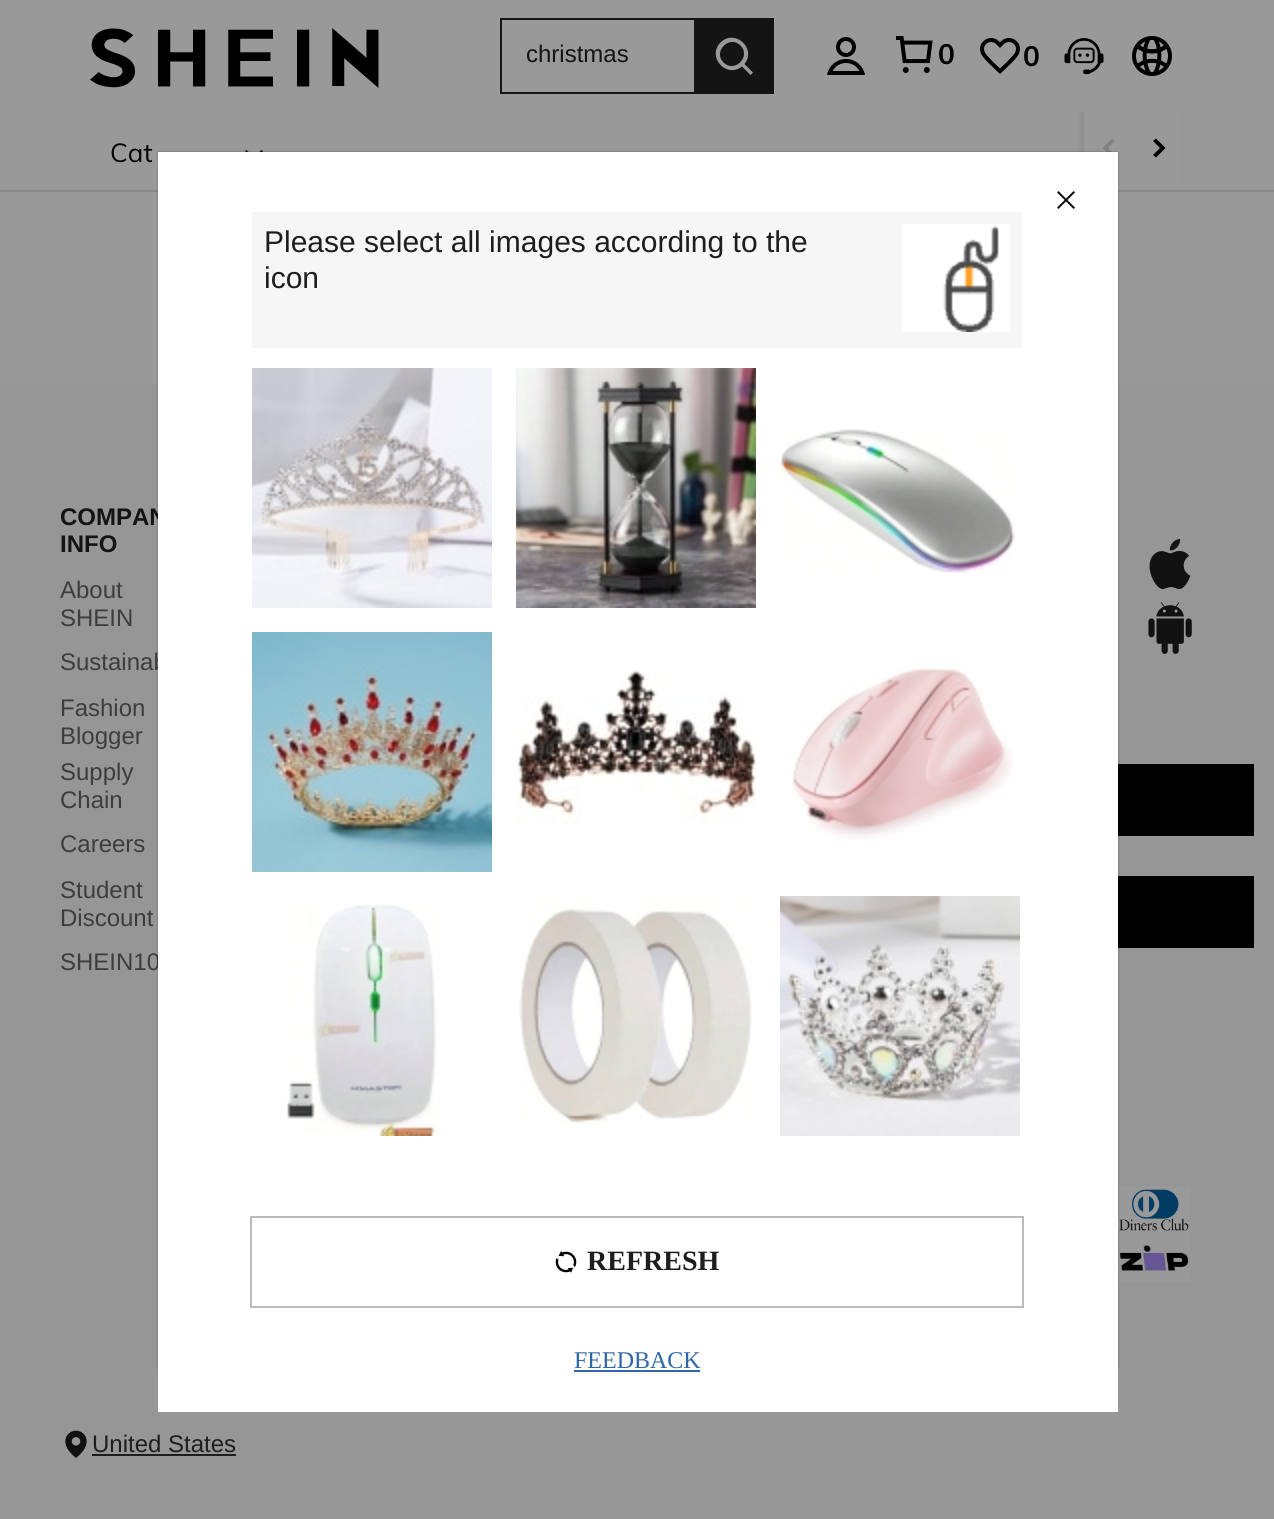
#include <cairo.h>
#include <math.h>
#include <stddef.h>

typedef struct { double x, y; const char *s; } line_t;
typedef struct { double x, y, w, h; unsigned color; } box_t;

static void ink(cairo_t *ctx, unsigned color) {
    cairo_set_source_rgb(ctx, (color >> 16) / 255.0, (color >> 8 & 255) / 255.0, (color & 255) / 255.0);
}

static void round_path(cairo_t *ctx, double x, double y, double w, double h, double r) {
    cairo_new_sub_path(ctx);
    cairo_arc(ctx, x + w - r, y + h - r, r, 0, M_PI / 2);
    cairo_arc(ctx, x + r, y + h - r, r, M_PI / 2, M_PI);
    cairo_arc(ctx, x + r, y + r, r, M_PI, 1.5 * M_PI);
    cairo_arc(ctx, x + w - r, y + r, r, 1.5 * M_PI, 2 * M_PI);
    cairo_close_path(ctx);
}

static void blur_box(cairo_t *ctx, double x, double y, double w, double h, double r, double blur, double alpha) {
    cairo_push_group_with_content(ctx, CAIRO_CONTENT_ALPHA);
    cairo_set_operator(ctx, CAIRO_OPERATOR_SOURCE);
    for (int i = 15; i >= -15 && fmin(w, h) + blur * i / 3 > 0; i -= 2) {
        double e = blur * i / 6;
        cairo_set_source_rgba(ctx, 0, 0, 0, alpha * erfc((i - 1) / 8.5) / 2);
        round_path(ctx, x - e, y - e, w + 2 * e, h + 2 * e, fmax(0, fmin(r + e + blur * .6, fmin(w, h) / 2 + e)));
        cairo_fill(ctx);
    }
    cairo_pattern_t *soft = cairo_pop_group(ctx);
    cairo_mask(ctx, soft);
    cairo_pattern_destroy(soft);
}

static void paste(cairo_t *ctx, const char *path, double x, double y, double w, double h) {
    cairo_surface_t *image = cairo_image_surface_create_from_png(path);
    cairo_save(ctx);
    cairo_set_source_surface(ctx, image, x, y);
    cairo_rectangle(ctx, x, y, w, h);
    cairo_fill(ctx);
    cairo_restore(ctx);
    cairo_surface_destroy(image);
}

int main(void) {
    cairo_surface_t *surface = cairo_image_surface_create(CAIRO_FORMAT_RGB24, 1274, 1519);
    cairo_t *ctx = cairo_create(surface);
    cairo_font_options_t *options = cairo_font_options_create();
    cairo_font_options_set_hint_metrics(options, CAIRO_HINT_METRICS_OFF);
    cairo_font_options_set_hint_style(options, CAIRO_HINT_STYLE_NONE);
    cairo_set_font_options(ctx, options);
    cairo_set_miter_limit(ctx, 4);
    ink(ctx, 0x999999);
    cairo_paint(ctx);
    paste(ctx, "media/1.png", 90, 28, 289, 60);
    {
        static const box_t items[] = {
            {500, 18, 194, 2, 0x141414},
            {500, 92, 194, 2, 0x141414},
            {500, 18, 2, 76, 0x141414},
        };
        for (size_t i = 0; i < sizeof items / sizeof *items; i++) {
            ink(ctx, items[i].color);
            cairo_rectangle(ctx, items[i].x, items[i].y, items[i].w, items[i].h);
            cairo_fill(ctx);
        }
    }
    cairo_select_font_face(ctx, "Liberation Sans", CAIRO_FONT_SLANT_NORMAL, CAIRO_FONT_WEIGHT_NORMAL);
    cairo_set_font_size(ctx, 24);
    cairo_move_to(ctx, 526, 62);
    cairo_show_text(ctx, "christmas");
    cairo_rectangle(ctx, 694, 18, 80, 76);
    cairo_fill(ctx);
    ink(ctx, 0x999999);
    cairo_set_fill_rule(ctx, CAIRO_FILL_RULE_EVEN_ODD);
    cairo_new_path(ctx);
    cairo_move_to(ctx, 720.5, 42.5);
    cairo_curve_to(ctx, 734.5, 28.5, 757, 48, 744.5, 64);
    cairo_line_to(ctx, 753, 72.5);
    cairo_line_to(ctx, 750.5, 75);
    cairo_line_to(ctx, 742, 66.5);
    cairo_curve_to(ctx, 726, 79, 706.5, 56.5, 720.5, 42.5);
    cairo_close_path(ctx);
    cairo_move_to(ctx, 740.5, 45.5);
    cairo_curve_to(ctx, 729.5, 34.5, 712.5, 51.5, 723.5, 62.5);
    cairo_curve_to(ctx, 734.5, 73.5, 751.5, 56.5, 740.5, 45.5);
    cairo_close_path(ctx);
    cairo_fill(ctx);
    paste(ctx, "media/2.png", 827, 37, 38, 38);
    paste(ctx, "media/3.png", 896, 36, 37, 37);
    cairo_select_font_face(ctx, "Muli", CAIRO_FONT_SLANT_NORMAL, CAIRO_FONT_WEIGHT_BOLD);
    cairo_set_font_size(ctx, 28);
    ink(ctx, 0x000000);
    cairo_move_to(ctx, 938, 64);
    cairo_show_text(ctx, "0");
    paste(ctx, "media/4.png", 980, 38, 40, 36);
    cairo_move_to(ctx, 1023, 66);
    cairo_show_text(ctx, "0");
    paste(ctx, "media/5.png", 1064, 38, 40, 37);
    paste(ctx, "media/6.png", 1132, 36, 40, 40);
    ink(ctx, 0x898989);
    cairo_rectangle(ctx, 0, 190, 1274, 2);
    cairo_fill(ctx);
    cairo_select_font_face(ctx, "Muli", CAIRO_FONT_SLANT_NORMAL, CAIRO_FONT_WEIGHT_NORMAL);
    cairo_set_font_size(ctx, 26);
    ink(ctx, 0x000000);
    cairo_move_to(ctx, 110, 162);
    cairo_show_text(ctx, "Cat");
    cairo_set_fill_rule(ctx, CAIRO_FILL_RULE_WINDING);
    cairo_new_path(ctx);
    cairo_move_to(ctx, 261.5, 150);
    cairo_line_to(ctx, 263, 151);
    cairo_line_to(ctx, 254, 160);
    cairo_line_to(ctx, 245, 151);
    cairo_line_to(ctx, 246.5, 150);
    cairo_line_to(ctx, 254, 157.5);
    cairo_close_path(ctx);
    cairo_fill(ctx);
    cairo_save(ctx);
    cairo_rectangle(ctx, 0, 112, 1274, 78);
    cairo_clip(ctx);
    ink(ctx, 0x000000);
    blur_box(ctx, 1080, 112, 100, 78, 0, 3, 0.08);
    cairo_restore(ctx);
    ink(ctx, 0x999999);
    cairo_rectangle(ctx, 1084, 112, 98, 78);
    cairo_fill(ctx);
    ink(ctx, 0x828282);
    cairo_set_fill_rule(ctx, CAIRO_FILL_RULE_EVEN_ODD);
    cairo_new_path(ctx);
    cairo_move_to(ctx, 1112, 138.5);
    cairo_line_to(ctx, 1115, 141);
    cairo_line_to(ctx, 1108, 148);
    cairo_line_to(ctx, 1115, 155);
    cairo_line_to(ctx, 1112, 157.5);
    cairo_line_to(ctx, 1102.5, 148);
    cairo_close_path(ctx);
    cairo_fill(ctx);
    ink(ctx, 0x000000);
    cairo_new_path(ctx);
    cairo_move_to(ctx, 1153, 141);
    cairo_line_to(ctx, 1156, 138.5);
    cairo_line_to(ctx, 1165.5, 148);
    cairo_line_to(ctx, 1156, 157.5);
    cairo_line_to(ctx, 1153, 155);
    cairo_line_to(ctx, 1160, 148);
    cairo_close_path(ctx);
    cairo_fill(ctx);
    ink(ctx, 0x969696);
    cairo_rectangle(ctx, 0, 384, 1274, 1135);
    cairo_fill(ctx);
    cairo_select_font_face(ctx, "Liberation Sans", CAIRO_FONT_SLANT_NORMAL, CAIRO_FONT_WEIGHT_BOLD);
    cairo_set_font_size(ctx, 24);
    ink(ctx, 0x141414);
    cairo_move_to(ctx, 60, 525);
    cairo_show_text(ctx, "COMPAN");
    cairo_move_to(ctx, 60, 552);
    cairo_show_text(ctx, "INFO");
    cairo_select_font_face(ctx, "Liberation Sans", CAIRO_FONT_SLANT_NORMAL, CAIRO_FONT_WEIGHT_NORMAL);
    ink(ctx, 0x3D3D3D);
    {
        static const line_t items[] = {
            {60, 598, "About"},
            {60, 626, "SHEIN"},
            {60, 670, "Sustainab"},
            {60, 716, "Fashion"},
            {60, 744, "Blogger"},
            {60, 780, "Supply"},
            {60, 808, "Chain"},
            {60, 852, "Careers"},
            {60, 898, "Student"},
            {60, 926, "Discount"},
            {60, 970, "SHEIN10"},
        };
        for (size_t i = 0; i < sizeof items / sizeof *items; i++) {
            cairo_move_to(ctx, items[i].x, items[i].y);
            cairo_show_text(ctx, items[i].s);
        }
    }
    paste(ctx, "media/7.png", 1149, 538, 42, 52);
    paste(ctx, "media/8.png", 1148, 602, 44, 52);
    ink(ctx, 0x000000);
    cairo_rectangle(ctx, 1118, 764, 136, 72);
    cairo_fill(ctx);
    cairo_rectangle(ctx, 1118, 876, 136, 72);
    cairo_fill(ctx);
    paste(ctx, "media/9.png", 1118, 1186, 72, 48);
    paste(ctx, "media/10.png", 1118, 1234, 72, 48);
    paste(ctx, "media/11.png", 65, 1430, 22, 28);
    ink(ctx, 0x1E1E1E);
    cairo_move_to(ctx, 92, 1452);
    cairo_show_text(ctx, "United States");
    cairo_rectangle(ctx, 92, 1454, 144, 2);
    cairo_fill(ctx);
    ink(ctx, 0x000000);
    blur_box(ctx, 158, 152, 960, 1216, 0, 1, 0.3);
    ink(ctx, 0xFFFFFF);
    cairo_rectangle(ctx, 158, 152, 960, 1260);
    cairo_fill(ctx);
    paste(ctx, "media/12.png", 1057, 191, 18, 18);
    ink(ctx, 0xF6F6F6);
    cairo_rectangle(ctx, 252, 212, 770, 136);
    cairo_fill(ctx);
    cairo_set_font_size(ctx, 30);
    ink(ctx, 0x1E1E1E);
    cairo_move_to(ctx, 264, 252);
    cairo_show_text(ctx, "Please select all images according to the");
    cairo_move_to(ctx, 264, 288);
    cairo_show_text(ctx, "icon");
    ink(ctx, 0xFFFFFF);
    cairo_rectangle(ctx, 902, 224, 108, 108);
    cairo_fill(ctx);
    paste(ctx, "media/13.png", 943, 225, 56, 107);
    paste(ctx, "media/14.png", 252, 368, 240, 240);
    paste(ctx, "media/15.png", 516, 368, 240, 240);
    paste(ctx, "media/16.png", 780, 429, 235, 145);
    paste(ctx, "media/17.png", 252, 632, 240, 240);
    paste(ctx, "media/18.png", 516, 670, 240, 154);
    paste(ctx, "media/19.png", 792, 667, 221, 173);
    paste(ctx, "media/20.png", 287, 904, 153, 232);
    paste(ctx, "media/21.png", 519, 896, 234, 228);
    paste(ctx, "media/22.png", 780, 896, 240, 240);
    cairo_rectangle(ctx, 251, 1217, 772, 90);
    ink(ctx, 0xBBBBBB);
    cairo_stroke(ctx);
    paste(ctx, "media/23.png", 555, 1251, 22, 22);
    cairo_select_font_face(ctx, "Liberation Serif", CAIRO_FONT_SLANT_NORMAL, CAIRO_FONT_WEIGHT_BOLD);
    cairo_set_font_size(ctx, 28);
    ink(ctx, 0x1E1E1E);
    cairo_move_to(ctx, 587, 1270);
    cairo_show_text(ctx, "REFRESH");
    cairo_select_font_face(ctx, "Liberation Serif", CAIRO_FONT_SLANT_NORMAL, CAIRO_FONT_WEIGHT_NORMAL);
    cairo_set_font_size(ctx, 24);
    ink(ctx, 0x2D68A8);
    cairo_move_to(ctx, 574, 1368);
    cairo_show_text(ctx, "FEEDBACK");
    cairo_rectangle(ctx, 574, 1370, 126, 2);
    cairo_fill(ctx);
    cairo_surface_write_to_png(surface, "image.png");
    cairo_font_options_destroy(options);
    cairo_destroy(ctx);
    cairo_surface_destroy(surface);
    return 0;
}
